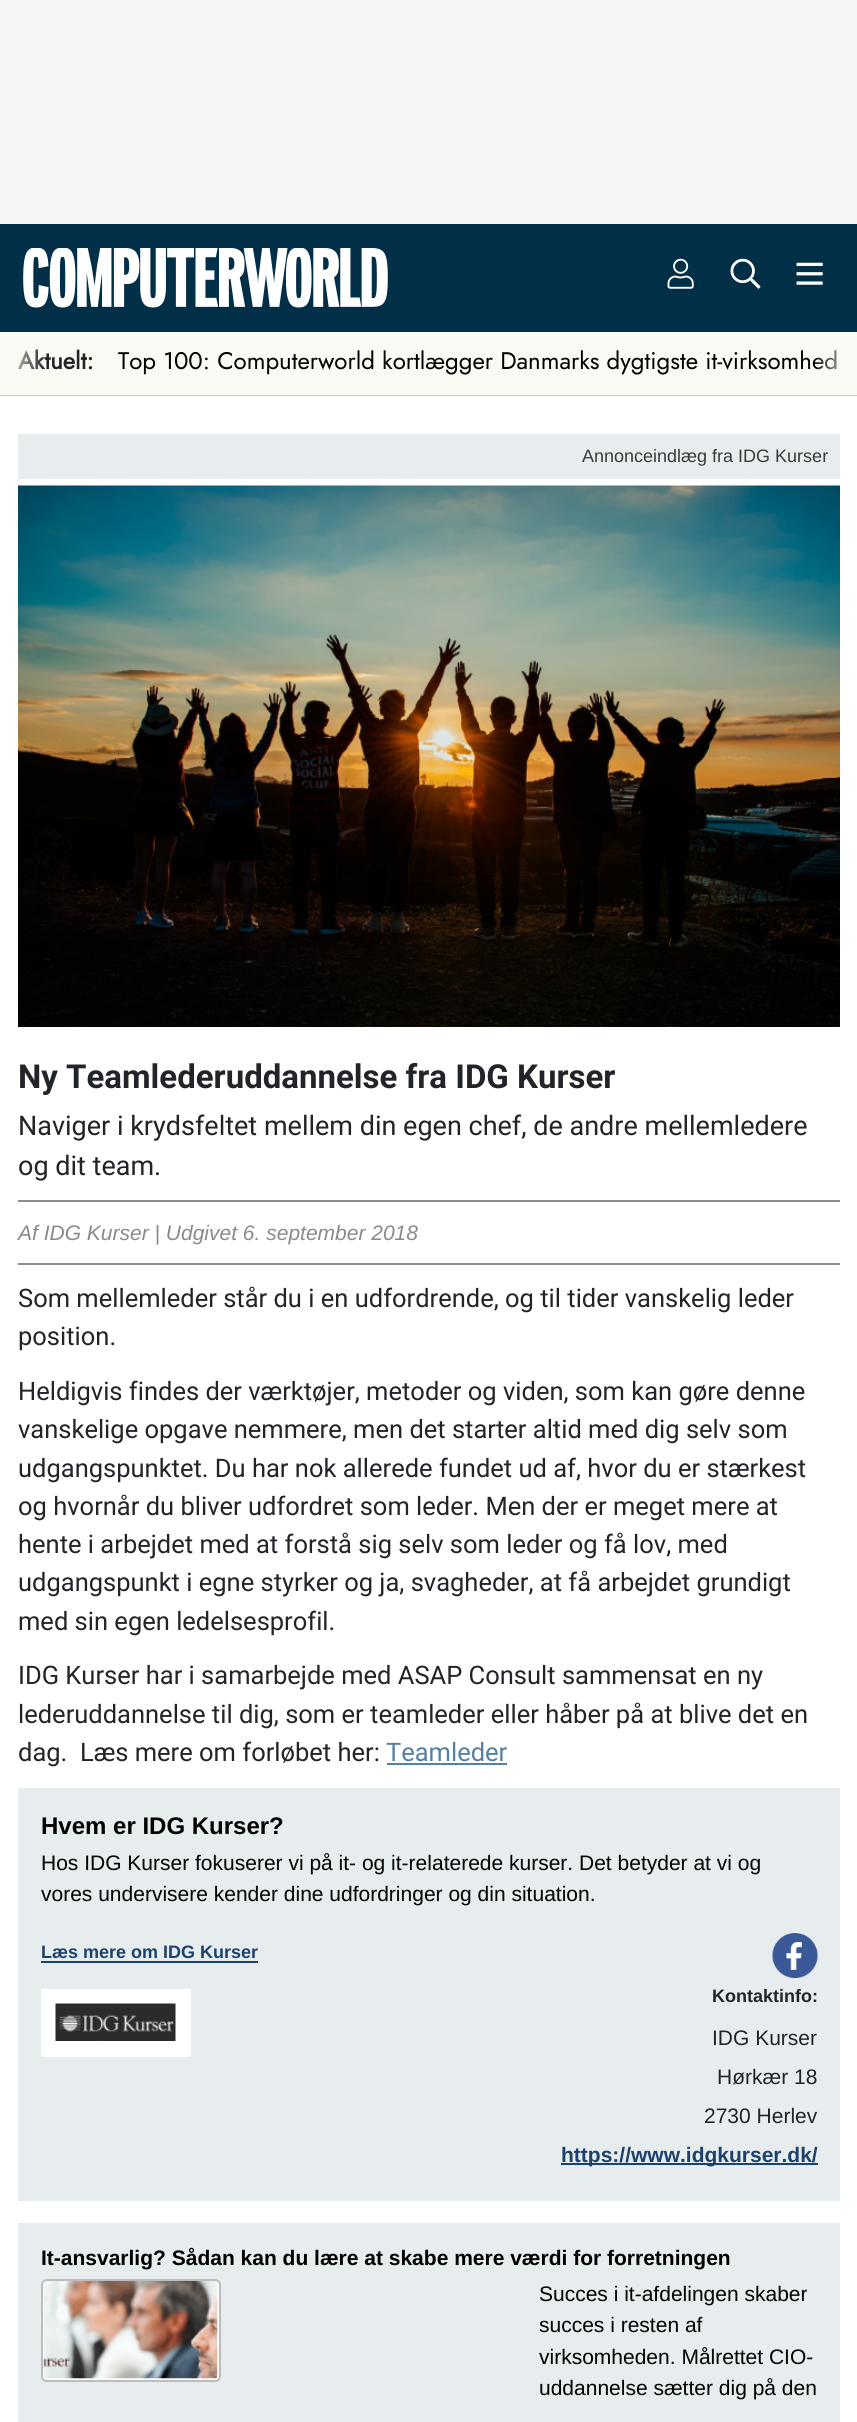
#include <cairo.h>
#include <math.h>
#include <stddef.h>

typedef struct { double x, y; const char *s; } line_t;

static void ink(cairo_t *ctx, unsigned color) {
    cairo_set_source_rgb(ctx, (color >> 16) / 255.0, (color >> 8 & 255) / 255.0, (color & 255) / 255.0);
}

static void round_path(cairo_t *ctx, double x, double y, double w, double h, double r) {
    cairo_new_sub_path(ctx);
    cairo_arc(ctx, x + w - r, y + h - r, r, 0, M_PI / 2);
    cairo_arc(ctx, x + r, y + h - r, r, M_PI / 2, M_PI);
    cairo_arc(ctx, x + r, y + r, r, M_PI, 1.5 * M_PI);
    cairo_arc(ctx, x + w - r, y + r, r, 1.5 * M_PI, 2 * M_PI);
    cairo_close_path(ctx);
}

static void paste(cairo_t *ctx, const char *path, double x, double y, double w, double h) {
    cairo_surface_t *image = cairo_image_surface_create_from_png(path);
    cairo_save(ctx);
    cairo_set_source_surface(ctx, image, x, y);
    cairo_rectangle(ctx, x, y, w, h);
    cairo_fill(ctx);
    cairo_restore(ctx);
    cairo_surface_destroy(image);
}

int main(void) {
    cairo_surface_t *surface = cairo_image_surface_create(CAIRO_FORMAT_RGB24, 857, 2422);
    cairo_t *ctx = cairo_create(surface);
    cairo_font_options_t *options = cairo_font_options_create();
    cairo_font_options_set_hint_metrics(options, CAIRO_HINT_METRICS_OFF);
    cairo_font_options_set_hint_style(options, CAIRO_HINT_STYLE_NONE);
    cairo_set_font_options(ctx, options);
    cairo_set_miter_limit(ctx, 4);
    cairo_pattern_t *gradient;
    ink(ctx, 0xF5F5F5);
    cairo_paint(ctx);
    ink(ctx, 0x012F47);
    cairo_rectangle(ctx, 0, 224, 857, 108);
    cairo_fill(ctx);
    paste(ctx, "media/1.png", 23, 248, 365, 60);
    paste(ctx, "media/2.png", 667, 258, 27, 31);
    paste(ctx, "media/3.png", 730, 258, 31, 31);
    paste(ctx, "media/4.png", 796, 262, 27, 23);
    ink(ctx, 0xFAFAF5);
    cairo_rectangle(ctx, 0, 332, 857, 63);
    cairo_fill(ctx);
    ink(ctx, 0xC8C8C4);
    cairo_rectangle(ctx, 0, 395, 857, 1);
    cairo_fill(ctx);
    cairo_select_font_face(ctx, "Jost", CAIRO_FONT_SLANT_NORMAL, CAIRO_FONT_WEIGHT_BOLD);
    cairo_set_font_size(ctx, 24);
    ink(ctx, 0x212529);
    cairo_move_to(ctx, 18, 369);
    cairo_show_text(ctx, "Aktuelt:");
    cairo_select_font_face(ctx, "Jost", CAIRO_FONT_SLANT_NORMAL, CAIRO_FONT_WEIGHT_NORMAL);
    ink(ctx, 0x000000);
    cairo_move_to(ctx, 118, 369);
    cairo_show_text(ctx, "Top 100: Computerworld kortlægger Danmarks dygtigste it-virksomhed");
    gradient = cairo_pattern_create_linear(0, 363, 45, 363);
    cairo_pattern_add_color_stop_rgba(gradient, 0, 0.98, 0.98, 0.961, 1);
    cairo_pattern_add_color_stop_rgba(gradient, 1, 0.98, 0.98, 0.961, 0);
    cairo_set_source(ctx, gradient);
    cairo_pattern_destroy(gradient);
    cairo_rectangle(ctx, 18, 350, 26, 19);
    cairo_fill(ctx);
    gradient = cairo_pattern_create_linear(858, 363, 813, 363);
    cairo_pattern_add_color_stop_rgba(gradient, 0, 0.98, 0.98, 0.961, 1);
    cairo_pattern_add_color_stop_rgba(gradient, 1, 0.98, 0.98, 0.961, 0);
    cairo_set_source(ctx, gradient);
    cairo_pattern_destroy(gradient);
    cairo_rectangle(ctx, 814, 350, 22, 20);
    cairo_fill(ctx);
    ink(ctx, 0xFFFFFF);
    cairo_rectangle(ctx, 0, 396, 857, 2026);
    cairo_fill(ctx);
    ink(ctx, 0xE7ECEF);
    cairo_rectangle(ctx, 18, 434, 822, 45);
    cairo_fill(ctx);
    cairo_select_font_face(ctx, "Liberation Sans", CAIRO_FONT_SLANT_NORMAL, CAIRO_FONT_WEIGHT_NORMAL);
    cairo_set_font_size(ctx, 18);
    ink(ctx, 0x3A3A3A);
    cairo_move_to(ctx, 582, 462);
    cairo_show_text(ctx, "Annonceindlæg fra IDG Kurser");
    paste(ctx, "media/5.png", 18, 485, 822, 542);
    cairo_select_font_face(ctx, "Roboto", CAIRO_FONT_SLANT_NORMAL, CAIRO_FONT_WEIGHT_BOLD);
    cairo_set_font_size(ctx, 33);
    ink(ctx, 0x212529);
    cairo_move_to(ctx, 18, 1088);
    cairo_show_text(ctx, "Ny Teamlederuddannelse fra IDG Kurser");
    cairo_select_font_face(ctx, "Roboto", CAIRO_FONT_SLANT_NORMAL, CAIRO_FONT_WEIGHT_NORMAL);
    cairo_set_font_size(ctx, 27);
    cairo_move_to(ctx, 18, 1135);
    cairo_show_text(ctx, "Naviger i krydsfeltet mellem din egen chef, de andre mellemledere");
    cairo_move_to(ctx, 18, 1175);
    cairo_show_text(ctx, "og dit team.");
    ink(ctx, 0x8E8E8E);
    cairo_rectangle(ctx, 18, 1200, 822, 2);
    cairo_fill(ctx);
    cairo_rectangle(ctx, 18, 1263, 822, 2);
    cairo_fill(ctx);
    cairo_select_font_face(ctx, "Liberation Sans", CAIRO_FONT_SLANT_ITALIC, CAIRO_FONT_WEIGHT_NORMAL);
    cairo_set_font_size(ctx, 21);
    ink(ctx, 0x8A8A8A);
    cairo_move_to(ctx, 18, 1240);
    cairo_show_text(ctx, "Af IDG Kurser | Udgivet 6. september 2018");
    cairo_select_font_face(ctx, "Roboto", CAIRO_FONT_SLANT_NORMAL, CAIRO_FONT_WEIGHT_NORMAL);
    cairo_set_font_size(ctx, 25.5);
    ink(ctx, 0x212529);
    {
        static const line_t items[] = {
            {18, 1307, "Som mellemleder står du i en udfordrende, og til tider vanskelig leder"},
            {18, 1345, "position."},
            {18, 1400, "Heldigvis findes der værktøjer, metoder og viden, som kan gøre denne"},
            {18, 1438, "vanskelige opgave nemmere, men det starter altid med dig selv som"},
            {18, 1477, "udgangspunktet. Du har nok allerede fundet ud af, hvor du er stærkest"},
            {18, 1515, "og hvornår du bliver udfordret som leder. Men der er meget mere at"},
            {18, 1553, "hente i arbejdet med at forstå sig selv som leder og få lov, med"},
            {18, 1591, "udgangspunkt i egne styrker og ja, svagheder, at få arbejdet grundigt"},
            {18, 1630, "med sin egen ledelsesprofil."},
            {18, 1684, "IDG Kurser har i samarbejde med ASAP Consult sammensat en ny"},
            {18, 1723, "lederuddannelse til dig, som er teamleder eller håber på at blive det en"},
            {18, 1761, "dag.  Læs mere om forløbet her:"},
        };
        for (size_t i = 0; i < sizeof items / sizeof *items; i++) {
            cairo_move_to(ctx, items[i].x, items[i].y);
            cairo_show_text(ctx, items[i].s);
        }
    }
    ink(ctx, 0x5580A2);
    cairo_move_to(ctx, 386, 1761);
    cairo_show_text(ctx, "Teamleder");
    cairo_rectangle(ctx, 387, 1763, 120, 2);
    cairo_fill(ctx);
    ink(ctx, 0xE7ECEF);
    cairo_rectangle(ctx, 18, 1788, 822, 413);
    cairo_fill(ctx);
    cairo_select_font_face(ctx, "Liberation Sans", CAIRO_FONT_SLANT_NORMAL, CAIRO_FONT_WEIGHT_BOLD);
    cairo_set_font_size(ctx, 24);
    ink(ctx, 0x000000);
    cairo_move_to(ctx, 41, 1834);
    cairo_show_text(ctx, "Hvem er IDG Kurser?");
    cairo_select_font_face(ctx, "Liberation Sans", CAIRO_FONT_SLANT_NORMAL, CAIRO_FONT_WEIGHT_NORMAL);
    cairo_set_font_size(ctx, 21);
    cairo_move_to(ctx, 41, 1870);
    cairo_show_text(ctx, "Hos IDG Kurser fokuserer vi på it- og it-relaterede kurser. Det betyder at vi og");
    cairo_move_to(ctx, 41, 1901);
    cairo_show_text(ctx, "vores undervisere kender dine udfordringer og din situation.");
    cairo_select_font_face(ctx, "Liberation Sans", CAIRO_FONT_SLANT_NORMAL, CAIRO_FONT_WEIGHT_BOLD);
    cairo_set_font_size(ctx, 18);
    ink(ctx, 0x1C426C);
    cairo_move_to(ctx, 41, 1958);
    cairo_show_text(ctx, "Læs mere om IDG Kurser");
    cairo_rectangle(ctx, 41, 1961, 217, 2);
    cairo_fill(ctx);
    paste(ctx, "media/6.png", 772, 1933, 46, 45);
    ink(ctx, 0xFFFFFF);
    cairo_rectangle(ctx, 41, 1989, 150, 68);
    cairo_fill(ctx);
    paste(ctx, "media/7.png", 55, 2003, 121, 38);
    ink(ctx, 0x212529);
    cairo_move_to(ctx, 712, 2002);
    cairo_show_text(ctx, "Kontaktinfo:");
    cairo_select_font_face(ctx, "Liberation Sans", CAIRO_FONT_SLANT_NORMAL, CAIRO_FONT_WEIGHT_NORMAL);
    cairo_set_font_size(ctx, 21);
    {
        static const line_t items[] = {
            {712, 2045, "IDG Kurser"},
            {717, 2084, "Hørkær 18"},
            {704, 2123, "2730 Herlev"},
        };
        for (size_t i = 0; i < sizeof items / sizeof *items; i++) {
            cairo_move_to(ctx, items[i].x, items[i].y);
            cairo_show_text(ctx, items[i].s);
        }
    }
    ink(ctx, 0x1C426C);
    cairo_rectangle(ctx, 561, 2163, 257, 2);
    cairo_fill(ctx);
    cairo_select_font_face(ctx, "Liberation Sans", CAIRO_FONT_SLANT_NORMAL, CAIRO_FONT_WEIGHT_BOLD);
    cairo_move_to(ctx, 561, 2162);
    cairo_show_text(ctx, "https://www.idgkurser.dk/");
    ink(ctx, 0xE7ECEF);
    cairo_rectangle(ctx, 18, 2223, 822, 199);
    cairo_fill(ctx);
    ink(ctx, 0x000000);
    cairo_move_to(ctx, 41, 2265);
    cairo_show_text(ctx, "It-ansvarlig? Sådan kan du lære at skabe mere værdi for forretningen");
    ink(ctx, 0xFFFFFF);
    round_path(ctx, 42, 2280, 178, 101, 5);
    cairo_fill_preserve(ctx);
    ink(ctx, 0xBDBDBD);
    cairo_stroke(ctx);
    paste(ctx, "media/8.png", 43, 2281, 175, 98);
    cairo_select_font_face(ctx, "Liberation Sans", CAIRO_FONT_SLANT_NORMAL, CAIRO_FONT_WEIGHT_NORMAL);
    ink(ctx, 0x000000);
    {
        static const line_t items[] = {
            {539, 2301, "Succes i it-afdelingen skaber"},
            {539, 2332, "succes i resten af"},
            {539, 2364, "virksomheden. Målrettet CIO-"},
            {539, 2395, "uddannelse sætter dig på den"},
        };
        for (size_t i = 0; i < sizeof items / sizeof *items; i++) {
            cairo_move_to(ctx, items[i].x, items[i].y);
            cairo_show_text(ctx, items[i].s);
        }
    }
    cairo_surface_write_to_png(surface, "image.png");
    cairo_font_options_destroy(options);
    cairo_destroy(ctx);
    cairo_surface_destroy(surface);
    return 0;
}
